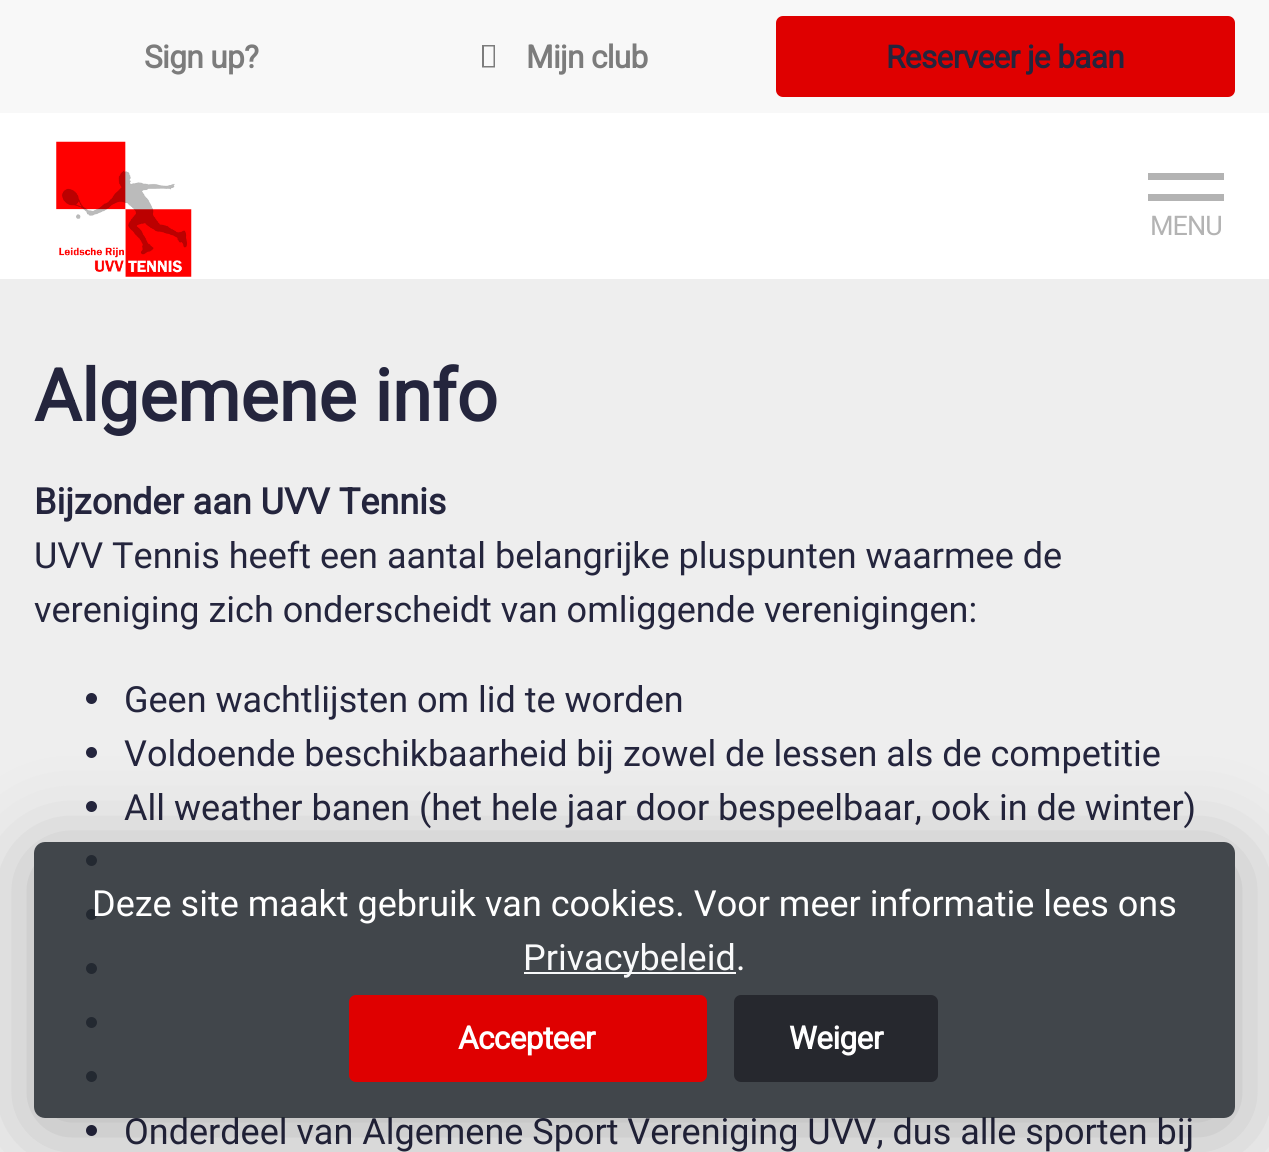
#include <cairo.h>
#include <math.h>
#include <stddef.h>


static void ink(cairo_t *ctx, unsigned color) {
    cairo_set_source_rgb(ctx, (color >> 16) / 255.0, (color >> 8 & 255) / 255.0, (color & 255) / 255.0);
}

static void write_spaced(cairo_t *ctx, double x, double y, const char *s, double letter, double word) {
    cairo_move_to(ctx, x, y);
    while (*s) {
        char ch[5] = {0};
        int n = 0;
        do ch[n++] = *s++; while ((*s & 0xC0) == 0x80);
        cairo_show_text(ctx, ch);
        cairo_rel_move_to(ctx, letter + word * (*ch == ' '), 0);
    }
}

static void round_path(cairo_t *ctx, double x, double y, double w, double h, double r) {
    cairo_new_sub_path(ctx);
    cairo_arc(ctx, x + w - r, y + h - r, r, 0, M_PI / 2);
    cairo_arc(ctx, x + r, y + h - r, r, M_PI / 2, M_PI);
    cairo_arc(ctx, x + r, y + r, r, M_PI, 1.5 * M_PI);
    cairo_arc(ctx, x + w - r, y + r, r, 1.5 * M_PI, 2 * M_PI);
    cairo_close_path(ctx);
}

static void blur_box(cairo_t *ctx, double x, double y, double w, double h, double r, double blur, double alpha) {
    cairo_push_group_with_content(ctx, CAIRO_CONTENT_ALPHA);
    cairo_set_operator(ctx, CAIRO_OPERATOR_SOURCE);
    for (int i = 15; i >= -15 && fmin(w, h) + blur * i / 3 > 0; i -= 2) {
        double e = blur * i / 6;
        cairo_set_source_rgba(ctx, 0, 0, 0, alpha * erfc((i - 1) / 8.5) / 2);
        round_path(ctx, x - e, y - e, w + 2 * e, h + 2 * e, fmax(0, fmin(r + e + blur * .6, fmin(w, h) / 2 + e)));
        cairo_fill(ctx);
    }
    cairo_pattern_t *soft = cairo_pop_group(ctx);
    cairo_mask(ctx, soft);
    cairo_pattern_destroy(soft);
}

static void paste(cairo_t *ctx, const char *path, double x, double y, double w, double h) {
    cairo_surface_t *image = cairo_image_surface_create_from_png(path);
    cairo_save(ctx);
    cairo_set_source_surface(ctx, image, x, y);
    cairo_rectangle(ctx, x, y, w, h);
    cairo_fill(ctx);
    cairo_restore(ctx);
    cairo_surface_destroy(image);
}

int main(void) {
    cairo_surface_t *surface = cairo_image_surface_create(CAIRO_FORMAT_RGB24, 1269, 1152);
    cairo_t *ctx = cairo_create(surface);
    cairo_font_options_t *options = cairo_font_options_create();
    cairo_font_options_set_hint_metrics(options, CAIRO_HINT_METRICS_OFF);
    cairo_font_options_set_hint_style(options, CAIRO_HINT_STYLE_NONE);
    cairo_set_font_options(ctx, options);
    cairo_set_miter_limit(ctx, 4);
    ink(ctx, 0xEEEEEE);
    cairo_paint(ctx);
    ink(ctx, 0xFFFFFF);
    cairo_rectangle(ctx, 0, 113, 1269, 166);
    cairo_fill(ctx);
    ink(ctx, 0xF8F8F8);
    cairo_rectangle(ctx, 0, 0, 1269, 113);
    cairo_fill(ctx);
    cairo_select_font_face(ctx, "Roboto", CAIRO_FONT_SLANT_NORMAL, CAIRO_FONT_WEIGHT_BOLD);
    cairo_set_font_size(ctx, 31.5);
    ink(ctx, 0x7C7C7C);
    write_spaced(ctx, 144, 68, "Sign up?", -0.6, 0);
    cairo_new_path(ctx);
    cairo_move_to(ctx, 482, 67.5);
    cairo_line_to(ctx, 482, 45);
    cairo_line_to(ctx, 495, 45);
    cairo_line_to(ctx, 495, 67.5);
    cairo_close_path(ctx);
    cairo_move_to(ctx, 484, 66);
    cairo_line_to(ctx, 493.5, 66);
    cairo_line_to(ctx, 493.5, 46.5);
    cairo_line_to(ctx, 484, 46.5);
    cairo_close_path(ctx);
    cairo_fill(ctx);
    write_spaced(ctx, 526, 68, "Mijn club", -0.6, 0);
    ink(ctx, 0xDF0000);
    round_path(ctx, 777, 17, 457, 79, 6);
    cairo_fill_preserve(ctx);
    cairo_stroke(ctx);
    ink(ctx, 0x24253D);
    write_spaced(ctx, 886, 68, "Reserveer je baan", -0.6, 0);
    paste(ctx, "media/1.png", 56, 141, 136, 136);
    ink(ctx, 0xB3B3B3);
    cairo_rectangle(ctx, 1148, 173, 76, 7);
    cairo_fill(ctx);
    cairo_rectangle(ctx, 1148, 194, 76, 7);
    cairo_fill(ctx);
    cairo_select_font_face(ctx, "Roboto", CAIRO_FONT_SLANT_NORMAL, CAIRO_FONT_WEIGHT_NORMAL);
    cairo_set_font_size(ctx, 27);
    write_spaced(ctx, 1150, 235, "MENU", -1, 0);
    cairo_select_font_face(ctx, "Roboto", CAIRO_FONT_SLANT_NORMAL, CAIRO_FONT_WEIGHT_BOLD);
    cairo_set_font_size(ctx, 72);
    ink(ctx, 0x24253D);
    cairo_move_to(ctx, 34, 421);
    cairo_show_text(ctx, "Algemene info");
    cairo_set_font_size(ctx, 36);
    cairo_move_to(ctx, 34, 514);
    cairo_show_text(ctx, "Bijzonder aan UVV Tennis");
    cairo_select_font_face(ctx, "Roboto", CAIRO_FONT_SLANT_NORMAL, CAIRO_FONT_WEIGHT_NORMAL);
    cairo_move_to(ctx, 34, 568);
    cairo_show_text(ctx, "UVV Tennis heeft een aantal belangrijke pluspunten waarmee de");
    cairo_move_to(ctx, 34, 622);
    cairo_show_text(ctx, "vereniging zich onderscheidt van omliggende verenigingen:");
    cairo_new_path(ctx);
    cairo_arc(ctx, 91.5, 698.5, 5.5, 0, 2 * M_PI);
    cairo_fill(ctx);
    cairo_move_to(ctx, 124, 712);
    cairo_show_text(ctx, "Geen wachtlijsten om lid te worden");
    cairo_new_path(ctx);
    cairo_arc(ctx, 91.5, 752.5, 5.5, 0, 2 * M_PI);
    cairo_fill(ctx);
    cairo_move_to(ctx, 124, 766);
    cairo_show_text(ctx, "Voldoende beschikbaarheid bij zowel de lessen als de competitie");
    cairo_new_path(ctx);
    cairo_arc(ctx, 91.5, 806.5, 5.5, 0, 2 * M_PI);
    cairo_fill(ctx);
    cairo_move_to(ctx, 124, 820);
    cairo_show_text(ctx, "All weather banen (het hele jaar door bespeelbaar, ook in de winter)");
    cairo_new_path(ctx);
    cairo_arc(ctx, 91.5, 860.5, 5.5, 0, 2 * M_PI);
    cairo_fill(ctx);
    cairo_arc(ctx, 91.5, 914.5, 5.5, 0, 2 * M_PI);
    cairo_fill(ctx);
    cairo_arc(ctx, 91.5, 968.5, 5.5, 0, 2 * M_PI);
    cairo_fill(ctx);
    cairo_arc(ctx, 91.5, 1022.5, 5.5, 0, 2 * M_PI);
    cairo_fill(ctx);
    cairo_arc(ctx, 91.5, 1076.5, 5.5, 0, 2 * M_PI);
    cairo_fill(ctx);
    cairo_arc(ctx, 91.5, 1130.5, 5.5, 0, 2 * M_PI);
    cairo_fill(ctx);
    cairo_move_to(ctx, 124, 1144);
    cairo_show_text(ctx, "Onderdeel van Algemene Sport Vereniging UVV, dus alle sporten bij");
    cairo_save(ctx);
    cairo_set_fill_rule(ctx, CAIRO_FILL_RULE_EVEN_ODD);
    cairo_new_path(ctx);
    cairo_move_to(ctx, 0, 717);
    cairo_line_to(ctx, 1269, 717);
    cairo_line_to(ctx, 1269, 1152);
    cairo_line_to(ctx, 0, 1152);
    cairo_close_path(ctx);
    cairo_move_to(ctx, 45, 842);
    cairo_line_to(ctx, 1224, 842);
    cairo_curve_to(ctx, 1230, 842, 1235, 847, 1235, 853);
    cairo_line_to(ctx, 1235, 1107);
    cairo_curve_to(ctx, 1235, 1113, 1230, 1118, 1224, 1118);
    cairo_line_to(ctx, 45, 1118);
    cairo_curve_to(ctx, 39, 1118, 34, 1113, 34, 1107);
    cairo_line_to(ctx, 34, 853);
    cairo_curve_to(ctx, 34, 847, 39, 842, 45, 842);
    cairo_close_path(ctx);
    cairo_clip(ctx);
    ink(ctx, 0x000000);
    blur_box(ctx, 34, 853, 1201, 277, 11, 45, 0.25);
    cairo_restore(ctx);
    cairo_set_source_rgba(ctx, 0.141, 0.165, 0.188, 0.85);
    round_path(ctx, 34, 842, 1201, 276, 11);
    cairo_fill(ctx);
    ink(ctx, 0xFFFFFF);
    cairo_move_to(ctx, 92, 916);
    cairo_show_text(ctx, "Deze site maakt gebruik van cookies. Voor meer informatie lees ons");
    ink(ctx, 0xF8F9FA);
    cairo_rectangle(ctx, 524, 972, 212, 2);
    cairo_fill(ctx);
    cairo_move_to(ctx, 523, 970);
    cairo_show_text(ctx, "Privacybeleid");
    ink(ctx, 0xFFFFFF);
    cairo_move_to(ctx, 736, 970);
    cairo_show_text(ctx, ".");
    ink(ctx, 0xDF0000);
    round_path(ctx, 350, 996, 356, 85, 6);
    cairo_fill_preserve(ctx);
    cairo_stroke(ctx);
    cairo_select_font_face(ctx, "Roboto", CAIRO_FONT_SLANT_NORMAL, CAIRO_FONT_WEIGHT_BOLD);
    cairo_set_font_size(ctx, 31.5);
    ink(ctx, 0xFFFFFF);
    write_spaced(ctx, 458, 1049, "Accepteer", -0.6, 0);
    ink(ctx, 0x26282E);
    round_path(ctx, 735, 996, 202, 85, 6);
    cairo_fill_preserve(ctx);
    cairo_stroke(ctx);
    ink(ctx, 0xFFFFFF);
    write_spaced(ctx, 789, 1049, "Weiger", -0.6, 0);
    cairo_surface_write_to_png(surface, "image.png");
    cairo_font_options_destroy(options);
    cairo_destroy(ctx);
    cairo_surface_destroy(surface);
    return 0;
}
